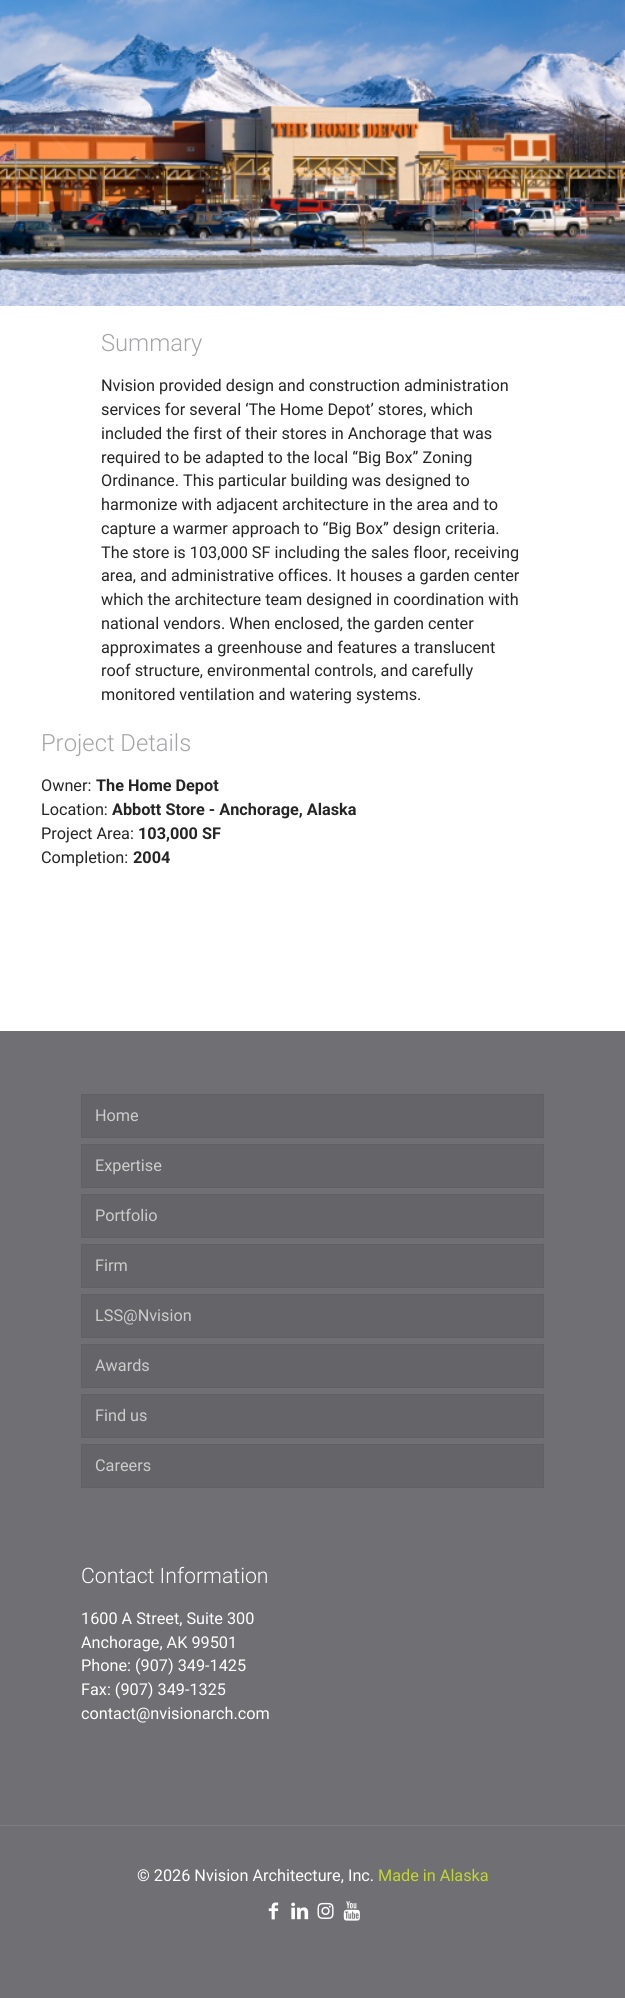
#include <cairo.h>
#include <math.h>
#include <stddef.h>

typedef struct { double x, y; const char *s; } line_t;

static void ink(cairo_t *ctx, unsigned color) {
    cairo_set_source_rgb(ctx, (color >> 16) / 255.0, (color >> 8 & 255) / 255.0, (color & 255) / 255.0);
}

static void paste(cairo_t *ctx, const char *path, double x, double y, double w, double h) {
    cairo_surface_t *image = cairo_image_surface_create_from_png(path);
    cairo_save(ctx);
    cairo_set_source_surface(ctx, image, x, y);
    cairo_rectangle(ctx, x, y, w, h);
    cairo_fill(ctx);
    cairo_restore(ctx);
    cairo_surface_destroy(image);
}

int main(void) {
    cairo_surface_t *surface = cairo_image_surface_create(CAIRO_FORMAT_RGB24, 625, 1998);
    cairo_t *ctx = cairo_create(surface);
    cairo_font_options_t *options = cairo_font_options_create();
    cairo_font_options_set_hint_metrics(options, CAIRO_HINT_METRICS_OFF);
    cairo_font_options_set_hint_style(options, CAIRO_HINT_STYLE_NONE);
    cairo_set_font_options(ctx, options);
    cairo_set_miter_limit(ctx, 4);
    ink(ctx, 0xFFFFFF);
    cairo_paint(ctx);
    paste(ctx, "media/1.png", 0, 0, 625, 306);
    cairo_set_source_rgba(ctx, 1, 1, 1, 0.05);
    cairo_new_path(ctx);
    cairo_move_to(ctx, 68, 150);
    cairo_line_to(ctx, 69, 151);
    cairo_curve_to(ctx, 68, 156, 63, 149, 63, 149);
    cairo_line_to(ctx, 46, 132);
    cairo_line_to(ctx, 46, 130);
    cairo_curve_to(ctx, 48, 128, 66, 109, 67, 110);
    cairo_curve_to(ctx, 72, 111, 63, 118, 62, 119);
    cairo_line_to(ctx, 50, 131);
    cairo_close_path(ctx);
    cairo_fill(ctx);
    cairo_new_path(ctx);
    cairo_move_to(ctx, 559, 150);
    cairo_line_to(ctx, 577, 131);
    cairo_line_to(ctx, 565, 119);
    cairo_curve_to(ctx, 564, 118, 555, 111, 560, 110);
    cairo_curve_to(ctx, 561, 109, 579, 128, 581, 130);
    cairo_line_to(ctx, 581, 132);
    cairo_line_to(ctx, 564, 149);
    cairo_curve_to(ctx, 564, 149, 559, 156, 558, 151);
    cairo_close_path(ctx);
    cairo_fill(ctx);
    cairo_rectangle(ctx, 240.5, 261.5, 21, 21);
    cairo_set_line_width(ctx, 3);
    cairo_stroke(ctx);
    cairo_rectangle(ctx, 248, 269, 7, 7);
    cairo_fill(ctx);
    cairo_select_font_face(ctx, "Roboto Light", CAIRO_FONT_SLANT_NORMAL, CAIRO_FONT_WEIGHT_NORMAL);
    cairo_set_font_size(ctx, 23.75);
    ink(ctx, 0xA4A5A8);
    cairo_move_to(ctx, 101, 351);
    cairo_show_text(ctx, "Summary");
    cairo_select_font_face(ctx, "Roboto", CAIRO_FONT_SLANT_NORMAL, CAIRO_FONT_WEIGHT_NORMAL);
    cairo_set_font_size(ctx, 16.25);
    ink(ctx, 0x252525);
    {
        static const line_t items[] = {
            {101, 391, "Nvision provided design and construction administration"},
            {101, 415, "services for several ‘The Home Depot’ stores, which"},
            {101, 439, "included the first of their stores in Anchorage that was"},
            {101, 463, "required to be adapted to the local “Big Box” Zoning"},
            {101, 486, "Ordinance. This particular building was designed to"},
            {101, 510, "harmonize with adjacent architecture in the area and to"},
            {101, 534, "capture a warmer approach to “Big Box” design criteria."},
            {101, 558, "The store is 103,000 SF including the sales floor, receiving"},
            {101, 581, "area, and administrative offices. It houses a garden center"},
            {101, 605, "which the architecture team designed in coordination with"},
            {101, 629, "national vendors. When enclosed, the garden center"},
            {101, 653, "approximates a greenhouse and features a translucent"},
            {101, 676, "roof structure, environmental controls, and carefully"},
            {101, 700, "monitored ventilation and watering systems."},
        };
        for (size_t i = 0; i < sizeof items / sizeof *items; i++) {
            cairo_move_to(ctx, items[i].x, items[i].y);
            cairo_show_text(ctx, items[i].s);
        }
    }
    cairo_select_font_face(ctx, "Roboto Light", CAIRO_FONT_SLANT_NORMAL, CAIRO_FONT_WEIGHT_NORMAL);
    cairo_set_font_size(ctx, 23.75);
    ink(ctx, 0xA4A5A8);
    cairo_move_to(ctx, 41, 751);
    cairo_show_text(ctx, "Project Details");
    cairo_select_font_face(ctx, "Roboto", CAIRO_FONT_SLANT_NORMAL, CAIRO_FONT_WEIGHT_NORMAL);
    cairo_set_font_size(ctx, 16.25);
    ink(ctx, 0x252525);
    cairo_move_to(ctx, 41, 791);
    cairo_show_text(ctx, "Owner:");
    cairo_select_font_face(ctx, "Roboto", CAIRO_FONT_SLANT_NORMAL, CAIRO_FONT_WEIGHT_BOLD);
    cairo_move_to(ctx, 96, 791);
    cairo_show_text(ctx, "The Home Depot");
    cairo_select_font_face(ctx, "Roboto", CAIRO_FONT_SLANT_NORMAL, CAIRO_FONT_WEIGHT_NORMAL);
    cairo_move_to(ctx, 41, 815);
    cairo_show_text(ctx, "Location:");
    cairo_select_font_face(ctx, "Roboto", CAIRO_FONT_SLANT_NORMAL, CAIRO_FONT_WEIGHT_BOLD);
    cairo_move_to(ctx, 112, 815);
    cairo_show_text(ctx, "Abbott Store - Anchorage, Alaska");
    cairo_select_font_face(ctx, "Roboto", CAIRO_FONT_SLANT_NORMAL, CAIRO_FONT_WEIGHT_NORMAL);
    cairo_move_to(ctx, 41, 839);
    cairo_show_text(ctx, "Project Area:");
    cairo_select_font_face(ctx, "Roboto", CAIRO_FONT_SLANT_NORMAL, CAIRO_FONT_WEIGHT_BOLD);
    cairo_move_to(ctx, 138, 839);
    cairo_show_text(ctx, "103,000 SF");
    cairo_select_font_face(ctx, "Roboto", CAIRO_FONT_SLANT_NORMAL, CAIRO_FONT_WEIGHT_NORMAL);
    cairo_move_to(ctx, 41, 863);
    cairo_show_text(ctx, "Completion:");
    cairo_select_font_face(ctx, "Roboto", CAIRO_FONT_SLANT_NORMAL, CAIRO_FONT_WEIGHT_BOLD);
    cairo_move_to(ctx, 133, 863);
    cairo_show_text(ctx, "2004");
    ink(ctx, 0x706F73);
    cairo_rectangle(ctx, 0, 1031, 625, 967);
    cairo_fill(ctx);
    ink(ctx, 0x656468);
    cairo_rectangle(ctx, 81.5, 1094.5, 462, 43);
    cairo_fill_preserve(ctx);
    ink(ctx, 0x616064);
    cairo_set_line_width(ctx, 1);
    cairo_stroke(ctx);
    cairo_select_font_face(ctx, "Roboto", CAIRO_FONT_SLANT_NORMAL, CAIRO_FONT_WEIGHT_NORMAL);
    ink(ctx, 0xCCCCCC);
    cairo_move_to(ctx, 95, 1121);
    cairo_show_text(ctx, "Home");
    ink(ctx, 0x656468);
    cairo_rectangle(ctx, 81.5, 1144.5, 462, 43);
    cairo_fill_preserve(ctx);
    ink(ctx, 0x616064);
    cairo_stroke(ctx);
    ink(ctx, 0xCCCCCC);
    cairo_move_to(ctx, 95, 1171);
    cairo_show_text(ctx, "Expertise");
    ink(ctx, 0x656468);
    cairo_rectangle(ctx, 81.5, 1194.5, 462, 43);
    cairo_fill_preserve(ctx);
    ink(ctx, 0x616064);
    cairo_stroke(ctx);
    ink(ctx, 0xCCCCCC);
    cairo_move_to(ctx, 95, 1221);
    cairo_show_text(ctx, "Portfolio");
    ink(ctx, 0x656468);
    cairo_rectangle(ctx, 81.5, 1244.5, 462, 43);
    cairo_fill_preserve(ctx);
    ink(ctx, 0x616064);
    cairo_stroke(ctx);
    ink(ctx, 0xCCCCCC);
    cairo_move_to(ctx, 95, 1271);
    cairo_show_text(ctx, "Firm");
    ink(ctx, 0x656468);
    cairo_rectangle(ctx, 81.5, 1294.5, 462, 43);
    cairo_fill_preserve(ctx);
    ink(ctx, 0x616064);
    cairo_stroke(ctx);
    ink(ctx, 0xCCCCCC);
    cairo_move_to(ctx, 95, 1321);
    cairo_show_text(ctx, "LSS@Nvision");
    ink(ctx, 0x656468);
    cairo_rectangle(ctx, 81.5, 1344.5, 462, 43);
    cairo_fill_preserve(ctx);
    ink(ctx, 0x616064);
    cairo_stroke(ctx);
    ink(ctx, 0xCCCCCC);
    cairo_move_to(ctx, 95, 1371);
    cairo_show_text(ctx, "Awards");
    ink(ctx, 0x656468);
    cairo_rectangle(ctx, 81.5, 1394.5, 462, 43);
    cairo_fill_preserve(ctx);
    ink(ctx, 0x616064);
    cairo_stroke(ctx);
    ink(ctx, 0xCCCCCC);
    cairo_move_to(ctx, 95, 1421);
    cairo_show_text(ctx, "Find us");
    ink(ctx, 0x656468);
    cairo_rectangle(ctx, 81.5, 1444.5, 462, 43);
    cairo_fill_preserve(ctx);
    ink(ctx, 0x616064);
    cairo_stroke(ctx);
    ink(ctx, 0xCCCCCC);
    cairo_move_to(ctx, 95, 1471);
    cairo_show_text(ctx, "Careers");
    cairo_select_font_face(ctx, "Roboto Light", CAIRO_FONT_SLANT_NORMAL, CAIRO_FONT_WEIGHT_NORMAL);
    cairo_set_font_size(ctx, 21.25);
    ink(ctx, 0xFFFFFF);
    cairo_move_to(ctx, 81, 1583);
    cairo_show_text(ctx, "Contact Information");
    cairo_select_font_face(ctx, "Roboto", CAIRO_FONT_SLANT_NORMAL, CAIRO_FONT_WEIGHT_NORMAL);
    cairo_set_font_size(ctx, 16.25);
    {
        static const line_t items[] = {
            {81, 1624, "1600 A Street, Suite 300"},
            {81, 1648, "Anchorage, AK 99501"},
            {81, 1671, "Phone: (907) 349-1425"},
            {81, 1695, "Fax: (907) 349-1325"},
            {81, 1719, "contact@nvisionarch.com"},
        };
        for (size_t i = 0; i < sizeof items / sizeof *items; i++) {
            cairo_move_to(ctx, items[i].x, items[i].y);
            cairo_show_text(ctx, items[i].s);
        }
    }
    ink(ctx, 0x7E7D81);
    cairo_rectangle(ctx, 0, 1825, 625, 1);
    cairo_fill(ctx);
    ink(ctx, 0xFFFFFF);
    cairo_move_to(ctx, 137, 1881);
    cairo_show_text(ctx, "© 2026 Nvision Architecture, Inc.");
    ink(ctx, 0xC1D72E);
    cairo_move_to(ctx, 378, 1881);
    cairo_show_text(ctx, "Made in Alaska");
    paste(ctx, "media/2.png", 268, 1902, 11, 18);
    paste(ctx, "media/3.png", 291, 1902, 18, 18);
    paste(ctx, "media/4.png", 317, 1902, 17, 17);
    paste(ctx, "media/5.png", 343, 1901, 17, 20);
    cairo_surface_write_to_png(surface, "image.png");
    cairo_font_options_destroy(options);
    cairo_destroy(ctx);
    cairo_surface_destroy(surface);
    return 0;
}
